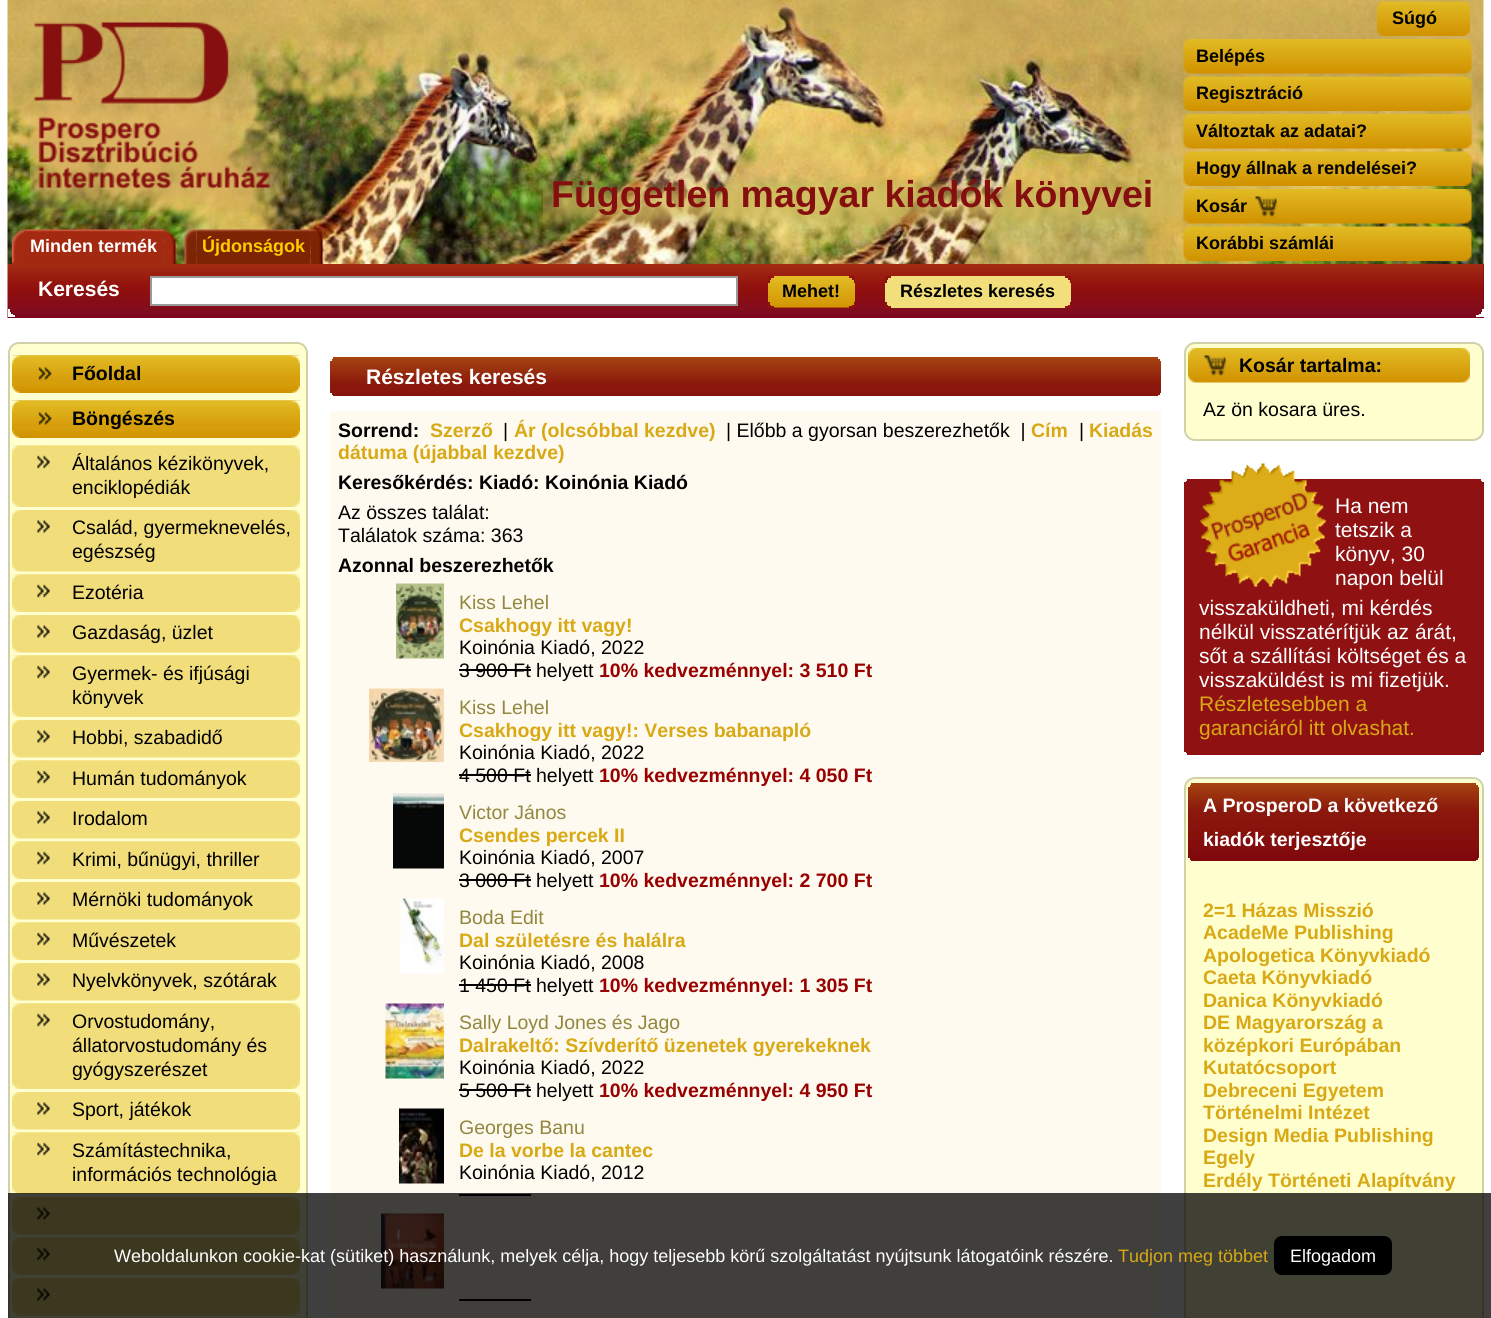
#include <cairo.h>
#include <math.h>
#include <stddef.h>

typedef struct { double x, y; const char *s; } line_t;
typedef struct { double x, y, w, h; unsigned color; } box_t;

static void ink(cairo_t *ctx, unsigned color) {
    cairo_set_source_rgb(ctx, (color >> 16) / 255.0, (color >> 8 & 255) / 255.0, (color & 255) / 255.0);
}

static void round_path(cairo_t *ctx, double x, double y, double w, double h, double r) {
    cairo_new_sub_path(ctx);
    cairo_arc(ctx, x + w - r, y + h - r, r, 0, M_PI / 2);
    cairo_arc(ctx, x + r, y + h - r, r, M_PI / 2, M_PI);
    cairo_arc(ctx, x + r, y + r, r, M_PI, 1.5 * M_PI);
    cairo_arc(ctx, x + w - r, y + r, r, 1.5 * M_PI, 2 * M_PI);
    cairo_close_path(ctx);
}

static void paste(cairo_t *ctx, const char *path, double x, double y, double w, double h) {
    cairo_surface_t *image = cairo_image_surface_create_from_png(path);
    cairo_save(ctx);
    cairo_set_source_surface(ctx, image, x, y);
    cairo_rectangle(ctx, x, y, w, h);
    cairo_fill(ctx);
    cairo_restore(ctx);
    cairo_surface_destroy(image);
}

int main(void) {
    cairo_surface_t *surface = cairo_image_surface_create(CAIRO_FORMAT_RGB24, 1491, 1318);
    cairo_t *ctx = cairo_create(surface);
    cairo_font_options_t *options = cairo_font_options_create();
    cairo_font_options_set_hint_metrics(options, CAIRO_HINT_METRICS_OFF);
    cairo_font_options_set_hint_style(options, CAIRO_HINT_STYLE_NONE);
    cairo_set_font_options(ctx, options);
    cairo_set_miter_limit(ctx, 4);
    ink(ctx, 0xFFFFFF);
    cairo_paint(ctx);
    paste(ctx, "media/1.png", 7, 0, 1477, 264);
    paste(ctx, "media/2.png", 30, 22, 254, 188);
    paste(ctx, "media/14.png", 1183, 151, 289, 35);
    paste(ctx, "media/15.png", 1183, 189, 289, 35);
    paste(ctx, "media/16.png", 1183, 226, 289, 35);
    paste(ctx, "media/3.png", 543, 174, 641, 54);
    cairo_select_font_face(ctx, "Liberation Sans", CAIRO_FONT_SLANT_NORMAL, CAIRO_FONT_WEIGHT_BOLD);
    cairo_set_font_size(ctx, 37.5);
    ink(ctx, 0x850F0F);
    cairo_move_to(ctx, 551, 207);
    cairo_show_text(ctx, "Független magyar kiadók könyvei");
    paste(ctx, "media/4.png", 12, 229, 12, 35);
    paste(ctx, "media/5.png", 163, 229, 13, 35);
    paste(ctx, "media/6.png", 24, 229, 140, 35);
    cairo_set_font_size(ctx, 18);
    ink(ctx, 0xFFFFFF);
    cairo_move_to(ctx, 30, 252);
    cairo_show_text(ctx, "Minden termék");
    paste(ctx, "media/7.png", 184, 229, 13, 35);
    paste(ctx, "media/8.png", 310, 229, 13, 35);
    paste(ctx, "media/9.png", 196, 229, 115, 35);
    ink(ctx, 0xFFCC00);
    cairo_move_to(ctx, 202, 252);
    cairo_show_text(ctx, "Újdonságok");
    paste(ctx, "media/10.png", 1377, 1, 93, 35);
    ink(ctx, 0x000000);
    cairo_move_to(ctx, 1392, 24);
    cairo_show_text(ctx, "Súgó");
    paste(ctx, "media/11.png", 1183, 39, 289, 35);
    cairo_move_to(ctx, 1196, 62);
    cairo_show_text(ctx, "Belépés");
    paste(ctx, "media/12.png", 1183, 76, 289, 35);
    cairo_move_to(ctx, 1196, 99);
    cairo_show_text(ctx, "Regisztráció");
    paste(ctx, "media/13.png", 1183, 114, 289, 35);
    {
        static const line_t items[] = {
            {1196, 137, "Változtak az adatai?"},
            {1196, 174, "Hogy állnak a rendelései?"},
            {1196, 212, "Kosár"},
            {1196, 249, "Korábbi számlái"},
        };
        for (size_t i = 0; i < sizeof items / sizeof *items; i++) {
            cairo_move_to(ctx, items[i].x, items[i].y);
            cairo_show_text(ctx, items[i].s);
        }
    }
    ink(ctx, 0x7D051E);
    cairo_rectangle(ctx, 1483, 264, 1, 54);
    cairo_fill(ctx);
    paste(ctx, "media/17.png", 7, 264, 1477, 54);
    cairo_set_font_size(ctx, 21);
    ink(ctx, 0xFFFFFF);
    cairo_move_to(ctx, 38, 296);
    cairo_show_text(ctx, "Keresés");
    cairo_rectangle(ctx, 151, 277, 586, 28);
    cairo_fill_preserve(ctx);
    ink(ctx, 0x999999);
    cairo_stroke(ctx);
    ink(ctx, 0x91110E);
    cairo_rectangle(ctx, 774, 307, 75, 1);
    cairo_fill(ctx);
    paste(ctx, "media/18.png", 768, 276, 87, 32);
    {
        static const box_t items[] = {
            {849, 276, 6, 2, 0x91110E},
            {768, 276, 6, 2, 0x91110E},
            {852, 278, 3, 2, 0x91110E},
            {768, 278, 3, 2, 0x91110E},
            {854, 279, 1, 4, 0x91110E},
            {768, 280, 2, 3, 0x91110E},
        };
        for (size_t i = 0; i < sizeof items / sizeof *items; i++) {
            ink(ctx, items[i].color);
            cairo_rectangle(ctx, items[i].x, items[i].y, items[i].w, items[i].h);
            cairo_fill(ctx);
        }
    }
    cairo_set_font_size(ctx, 18);
    ink(ctx, 0x000000);
    cairo_move_to(ctx, 782, 297);
    cairo_show_text(ctx, "Mehet!");
    {
        static const box_t items[] = {
            {854, 302, 1, 3, 0x91110E},
            {768, 302, 2, 3, 0x91110E},
            {852, 305, 3, 1, 0x91110E},
            {768, 305, 3, 1, 0x91110E},
            {849, 306, 6, 2, 0x91110E},
            {768, 306, 6, 2, 0x91110E},
            {885, 276, 186, 32, 0xF2DF7C},
            {1065, 276, 6, 2, 0x91110E},
            {885, 276, 6, 2, 0x91110E},
            {1068, 278, 3, 2, 0x91110E},
            {885, 278, 3, 2, 0x91110E},
            {1070, 279, 1, 4, 0x91110E},
            {885, 280, 2, 3, 0x91110E},
        };
        for (size_t i = 0; i < sizeof items / sizeof *items; i++) {
            ink(ctx, items[i].color);
            cairo_rectangle(ctx, items[i].x, items[i].y, items[i].w, items[i].h);
            cairo_fill(ctx);
        }
    }
    ink(ctx, 0x000000);
    cairo_move_to(ctx, 900, 297);
    cairo_show_text(ctx, "Részletes keresés");
    {
        static const box_t items[] = {
            {1070, 302, 1, 3, 0x91110E},
            {885, 302, 2, 3, 0x91110E},
            {1068, 305, 3, 1, 0x91110E},
            {885, 305, 3, 1, 0x91110E},
            {1065, 306, 6, 2, 0x91110E},
            {885, 306, 6, 2, 0x91110E},
            {1482, 309, 2, 3, 0xFFFFFF},
            {8, 309, 2, 3, 0xFFFFFF},
            {1481, 312, 3, 2, 0xFFFFFF},
            {8, 312, 3, 2, 0xFFFFFF},
            {1479, 314, 5, 1, 0xFFFFFF},
            {8, 314, 5, 1, 0xFFFFFF},
            {1476, 315, 8, 2, 0xFFFFFF},
            {8, 315, 7, 2, 0xFFFFFF},
        };
        for (size_t i = 0; i < sizeof items / sizeof *items; i++) {
            ink(ctx, items[i].color);
            cairo_rectangle(ctx, items[i].x, items[i].y, items[i].w, items[i].h);
            cairo_fill(ctx);
        }
    }
    ink(ctx, 0xFFFFCF);
    round_path(ctx, 9, 343, 298, 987, 10);
    cairo_fill_preserve(ctx);
    ink(ctx, 0xD1D1A9);
    cairo_stroke(ctx);
    paste(ctx, "media/19.png", 12, 355, 288, 38);
    paste(ctx, "media/20.png", 12, 355, 288, 31);
    cairo_set_font_size(ctx, 19.5);
    ink(ctx, 0x000000);
    cairo_move_to(ctx, 72, 380);
    cairo_show_text(ctx, "Főoldal");
    paste(ctx, "media/19.png", 12, 400, 288, 38);
    paste(ctx, "media/20.png", 12, 400, 288, 31);
    cairo_move_to(ctx, 72, 425);
    cairo_show_text(ctx, "Böngészés");
    paste(ctx, "media/21.png", 12, 445, 288, 62);
    paste(ctx, "media/22.png", 12, 445, 288, 55);
    cairo_select_font_face(ctx, "Liberation Sans", CAIRO_FONT_SLANT_NORMAL, CAIRO_FONT_WEIGHT_NORMAL);
    cairo_move_to(ctx, 72, 470);
    cairo_show_text(ctx, "Általános kézikönyvek,");
    cairo_move_to(ctx, 72, 494);
    cairo_show_text(ctx, "enciklopédiák");
    paste(ctx, "media/23.png", 12, 564, 288, 8);
    paste(ctx, "media/24.png", 12, 510, 288, 54);
    cairo_move_to(ctx, 72, 534);
    cairo_show_text(ctx, "Család, gyermeknevelés,");
    cairo_move_to(ctx, 72, 558);
    cairo_show_text(ctx, "egészség");
    paste(ctx, "media/25.png", 12, 574, 288, 38);
    paste(ctx, "media/26.png", 12, 574, 288, 31);
    cairo_move_to(ctx, 72, 599);
    cairo_show_text(ctx, "Ezotéria");
    paste(ctx, "media/23.png", 12, 645, 288, 8);
    paste(ctx, "media/27.png", 12, 615, 288, 30);
    cairo_move_to(ctx, 72, 639);
    cairo_show_text(ctx, "Gazdaság, üzlet");
    paste(ctx, "media/21.png", 12, 655, 288, 62);
    paste(ctx, "media/22.png", 12, 655, 288, 55);
    cairo_move_to(ctx, 72, 680);
    cairo_show_text(ctx, "Gyermek- és ifjúsági");
    cairo_move_to(ctx, 72, 704);
    cairo_show_text(ctx, "könyvek");
    paste(ctx, "media/23.png", 12, 750, 288, 8);
    paste(ctx, "media/27.png", 12, 720, 288, 30);
    cairo_move_to(ctx, 72, 744);
    cairo_show_text(ctx, "Hobbi, szabadidő");
    paste(ctx, "media/25.png", 12, 760, 288, 38);
    paste(ctx, "media/26.png", 12, 760, 288, 31);
    cairo_move_to(ctx, 72, 785);
    cairo_show_text(ctx, "Humán tudományok");
    paste(ctx, "media/23.png", 12, 831, 288, 8);
    paste(ctx, "media/27.png", 12, 801, 288, 30);
    cairo_move_to(ctx, 72, 825);
    cairo_show_text(ctx, "Irodalom");
    paste(ctx, "media/25.png", 12, 841, 288, 38);
    paste(ctx, "media/26.png", 12, 841, 288, 31);
    cairo_move_to(ctx, 72, 866);
    cairo_show_text(ctx, "Krimi, bűnügyi, thriller");
    paste(ctx, "media/23.png", 12, 912, 288, 8);
    paste(ctx, "media/27.png", 12, 882, 288, 30);
    cairo_move_to(ctx, 72, 906);
    cairo_show_text(ctx, "Mérnöki tudományok");
    paste(ctx, "media/25.png", 12, 922, 288, 38);
    paste(ctx, "media/26.png", 12, 922, 288, 31);
    cairo_move_to(ctx, 72, 947);
    cairo_show_text(ctx, "Művészetek");
    paste(ctx, "media/23.png", 12, 993, 288, 8);
    paste(ctx, "media/27.png", 12, 963, 288, 30);
    cairo_move_to(ctx, 72, 987);
    cairo_show_text(ctx, "Nyelvkönyvek, szótárak");
    paste(ctx, "media/28.png", 12, 1003, 288, 86);
    paste(ctx, "media/29.png", 12, 1003, 288, 79);
    {
        static const line_t items[] = {
            {72, 1028, "Orvostudomány,"},
            {72, 1052, "állatorvostudomány és"},
            {72, 1076, "gyógyszerészet"},
        };
        for (size_t i = 0; i < sizeof items / sizeof *items; i++) {
            cairo_move_to(ctx, items[i].x, items[i].y);
            cairo_show_text(ctx, items[i].s);
        }
    }
    paste(ctx, "media/23.png", 12, 1122, 288, 8);
    paste(ctx, "media/27.png", 12, 1092, 288, 30);
    cairo_move_to(ctx, 72, 1116);
    cairo_show_text(ctx, "Sport, játékok");
    paste(ctx, "media/21.png", 12, 1132, 288, 62);
    paste(ctx, "media/22.png", 12, 1132, 288, 55);
    cairo_move_to(ctx, 72, 1157);
    cairo_show_text(ctx, "Számítástechnika,");
    cairo_move_to(ctx, 72, 1181);
    cairo_show_text(ctx, "információs technológia");
    paste(ctx, "media/23.png", 12, 1227, 288, 8);
    paste(ctx, "media/27.png", 12, 1197, 288, 30);
    paste(ctx, "media/25.png", 12, 1237, 288, 38);
    paste(ctx, "media/26.png", 12, 1237, 288, 31);
    paste(ctx, "media/23.png", 12, 1308, 288, 8);
    paste(ctx, "media/27.png", 12, 1278, 288, 30);
    paste(ctx, "media/30.png", 330, 357, 831, 39);
    {
        static const box_t items[] = {
            {1158, 357, 3, 2, 0xFFFFFF},
            {330, 357, 3, 2, 0xFFFFFF},
            {1160, 359, 2, 2, 0xFFFFFF},
            {330, 359, 2, 2, 0xFFFFFF},
        };
        for (size_t i = 0; i < sizeof items / sizeof *items; i++) {
            ink(ctx, items[i].color);
            cairo_rectangle(ctx, items[i].x, items[i].y, items[i].w, items[i].h);
            cairo_fill(ctx);
        }
    }
    cairo_select_font_face(ctx, "Liberation Sans", CAIRO_FONT_SLANT_NORMAL, CAIRO_FONT_WEIGHT_BOLD);
    cairo_set_font_size(ctx, 21);
    cairo_move_to(ctx, 366, 384);
    cairo_show_text(ctx, "Részletes keresés");
    {
        static const box_t items[] = {
            {1160, 393, 2, 2, 0xFFFFFF},
            {330, 393, 2, 2, 0xFFFFFF},
            {1158, 395, 3, 1, 0xFFFFFF},
            {330, 395, 3, 1, 0xFFFFFF},
            {330, 411, 831, 907, 0xFEFAEF},
        };
        for (size_t i = 0; i < sizeof items / sizeof *items; i++) {
            ink(ctx, items[i].color);
            cairo_rectangle(ctx, items[i].x, items[i].y, items[i].w, items[i].h);
            cairo_fill(ctx);
        }
    }
    cairo_set_font_size(ctx, 19.5);
    ink(ctx, 0x000000);
    cairo_move_to(ctx, 338, 437);
    cairo_show_text(ctx, "Sorrend:");
    ink(ctx, 0xD8A915);
    cairo_move_to(ctx, 430, 437);
    cairo_show_text(ctx, "Szerző");
    cairo_select_font_face(ctx, "Liberation Sans", CAIRO_FONT_SLANT_NORMAL, CAIRO_FONT_WEIGHT_NORMAL);
    ink(ctx, 0x000000);
    cairo_move_to(ctx, 503, 437);
    cairo_show_text(ctx, "|");
    cairo_select_font_face(ctx, "Liberation Sans", CAIRO_FONT_SLANT_NORMAL, CAIRO_FONT_WEIGHT_BOLD);
    ink(ctx, 0xD8A915);
    cairo_move_to(ctx, 514, 437);
    cairo_show_text(ctx, "Ár (olcsóbbal kezdve)");
    cairo_select_font_face(ctx, "Liberation Sans", CAIRO_FONT_SLANT_NORMAL, CAIRO_FONT_WEIGHT_NORMAL);
    ink(ctx, 0x000000);
    cairo_move_to(ctx, 726, 437);
    cairo_show_text(ctx, "| Előbb a gyorsan beszerezhetők  |");
    cairo_select_font_face(ctx, "Liberation Sans", CAIRO_FONT_SLANT_NORMAL, CAIRO_FONT_WEIGHT_BOLD);
    ink(ctx, 0xD8A915);
    cairo_move_to(ctx, 1031, 437);
    cairo_show_text(ctx, "Cím");
    cairo_select_font_face(ctx, "Liberation Sans", CAIRO_FONT_SLANT_NORMAL, CAIRO_FONT_WEIGHT_NORMAL);
    ink(ctx, 0x000000);
    cairo_move_to(ctx, 1079, 437);
    cairo_show_text(ctx, "|");
    cairo_select_font_face(ctx, "Liberation Sans", CAIRO_FONT_SLANT_NORMAL, CAIRO_FONT_WEIGHT_BOLD);
    ink(ctx, 0xD8A915);
    cairo_move_to(ctx, 1089, 437);
    cairo_show_text(ctx, "Kiadás");
    cairo_move_to(ctx, 338, 459);
    cairo_show_text(ctx, "dátuma (újabbal kezdve)");
    ink(ctx, 0x000000);
    cairo_move_to(ctx, 338, 489);
    cairo_show_text(ctx, "Keresőkérdés: Kiadó: Koinónia Kiadó");
    cairo_select_font_face(ctx, "Liberation Sans", CAIRO_FONT_SLANT_NORMAL, CAIRO_FONT_WEIGHT_NORMAL);
    cairo_move_to(ctx, 338, 519);
    cairo_show_text(ctx, "Az összes találat:");
    cairo_move_to(ctx, 338, 542);
    cairo_show_text(ctx, "Találatok száma: 363");
    cairo_select_font_face(ctx, "Liberation Sans", CAIRO_FONT_SLANT_NORMAL, CAIRO_FONT_WEIGHT_BOLD);
    cairo_move_to(ctx, 338, 572);
    cairo_show_text(ctx, "Azonnal beszerezhetők");
    paste(ctx, "media/31.png", 396, 583, 48, 76);
    cairo_select_font_face(ctx, "Liberation Sans", CAIRO_FONT_SLANT_NORMAL, CAIRO_FONT_WEIGHT_NORMAL);
    ink(ctx, 0x92873F);
    cairo_move_to(ctx, 459, 609);
    cairo_show_text(ctx, "Kiss Lehel");
    cairo_select_font_face(ctx, "Liberation Sans", CAIRO_FONT_SLANT_NORMAL, CAIRO_FONT_WEIGHT_BOLD);
    ink(ctx, 0xD8A915);
    cairo_move_to(ctx, 459, 632);
    cairo_show_text(ctx, "Csakhogy itt vagy!");
    cairo_select_font_face(ctx, "Liberation Sans", CAIRO_FONT_SLANT_NORMAL, CAIRO_FONT_WEIGHT_NORMAL);
    ink(ctx, 0x000000);
    cairo_move_to(ctx, 459, 654);
    cairo_show_text(ctx, "Koinónia Kiadó, 2022");
    cairo_move_to(ctx, 459, 677);
    cairo_show_text(ctx, "3 900 Ft helyett");
    cairo_rectangle(ctx, 459, 669, 72, 2);
    cairo_fill(ctx);
    cairo_select_font_face(ctx, "Liberation Sans", CAIRO_FONT_SLANT_NORMAL, CAIRO_FONT_WEIGHT_BOLD);
    ink(ctx, 0x990000);
    cairo_move_to(ctx, 599, 677);
    cairo_show_text(ctx, "10% kedvezménnyel: 3 510 Ft");
    paste(ctx, "media/32.png", 369, 688, 75, 74);
    cairo_select_font_face(ctx, "Liberation Sans", CAIRO_FONT_SLANT_NORMAL, CAIRO_FONT_WEIGHT_NORMAL);
    ink(ctx, 0x92873F);
    cairo_move_to(ctx, 459, 714);
    cairo_show_text(ctx, "Kiss Lehel");
    cairo_select_font_face(ctx, "Liberation Sans", CAIRO_FONT_SLANT_NORMAL, CAIRO_FONT_WEIGHT_BOLD);
    ink(ctx, 0xD8A915);
    cairo_move_to(ctx, 459, 737);
    cairo_show_text(ctx, "Csakhogy itt vagy!: Verses babanapló");
    cairo_select_font_face(ctx, "Liberation Sans", CAIRO_FONT_SLANT_NORMAL, CAIRO_FONT_WEIGHT_NORMAL);
    ink(ctx, 0x000000);
    cairo_move_to(ctx, 459, 759);
    cairo_show_text(ctx, "Koinónia Kiadó, 2022");
    cairo_move_to(ctx, 459, 782);
    cairo_show_text(ctx, "4 500 Ft helyett");
    cairo_rectangle(ctx, 459, 774, 72, 2);
    cairo_fill(ctx);
    cairo_select_font_face(ctx, "Liberation Sans", CAIRO_FONT_SLANT_NORMAL, CAIRO_FONT_WEIGHT_BOLD);
    ink(ctx, 0x990000);
    cairo_move_to(ctx, 599, 782);
    cairo_show_text(ctx, "10% kedvezménnyel: 4 050 Ft");
    paste(ctx, "media/33.png", 393, 793, 51, 76);
    cairo_select_font_face(ctx, "Liberation Sans", CAIRO_FONT_SLANT_NORMAL, CAIRO_FONT_WEIGHT_NORMAL);
    ink(ctx, 0x92873F);
    cairo_move_to(ctx, 459, 819);
    cairo_show_text(ctx, "Victor János");
    cairo_select_font_face(ctx, "Liberation Sans", CAIRO_FONT_SLANT_NORMAL, CAIRO_FONT_WEIGHT_BOLD);
    ink(ctx, 0xD8A915);
    cairo_move_to(ctx, 459, 842);
    cairo_show_text(ctx, "Csendes percek II");
    cairo_select_font_face(ctx, "Liberation Sans", CAIRO_FONT_SLANT_NORMAL, CAIRO_FONT_WEIGHT_NORMAL);
    ink(ctx, 0x000000);
    cairo_move_to(ctx, 459, 864);
    cairo_show_text(ctx, "Koinónia Kiadó, 2007");
    cairo_move_to(ctx, 459, 887);
    cairo_show_text(ctx, "3 000 Ft helyett");
    cairo_rectangle(ctx, 459, 879, 72, 2);
    cairo_fill(ctx);
    cairo_select_font_face(ctx, "Liberation Sans", CAIRO_FONT_SLANT_NORMAL, CAIRO_FONT_WEIGHT_BOLD);
    ink(ctx, 0x990000);
    cairo_move_to(ctx, 599, 887);
    cairo_show_text(ctx, "10% kedvezménnyel: 2 700 Ft");
    paste(ctx, "media/34.png", 400, 898, 44, 76);
    cairo_select_font_face(ctx, "Liberation Sans", CAIRO_FONT_SLANT_NORMAL, CAIRO_FONT_WEIGHT_NORMAL);
    ink(ctx, 0x92873F);
    cairo_move_to(ctx, 459, 924);
    cairo_show_text(ctx, "Boda Edit");
    cairo_select_font_face(ctx, "Liberation Sans", CAIRO_FONT_SLANT_NORMAL, CAIRO_FONT_WEIGHT_BOLD);
    ink(ctx, 0xD8A915);
    cairo_move_to(ctx, 459, 947);
    cairo_show_text(ctx, "Dal születésre és halálra");
    cairo_select_font_face(ctx, "Liberation Sans", CAIRO_FONT_SLANT_NORMAL, CAIRO_FONT_WEIGHT_NORMAL);
    ink(ctx, 0x000000);
    cairo_move_to(ctx, 459, 969);
    cairo_show_text(ctx, "Koinónia Kiadó, 2008");
    cairo_move_to(ctx, 459, 992);
    cairo_show_text(ctx, "1 450 Ft helyett");
    cairo_rectangle(ctx, 459, 984, 72, 2);
    cairo_fill(ctx);
    cairo_select_font_face(ctx, "Liberation Sans", CAIRO_FONT_SLANT_NORMAL, CAIRO_FONT_WEIGHT_BOLD);
    ink(ctx, 0x990000);
    cairo_move_to(ctx, 599, 992);
    cairo_show_text(ctx, "10% kedvezménnyel: 1 305 Ft");
    paste(ctx, "media/35.png", 385, 1003, 59, 76);
    cairo_select_font_face(ctx, "Liberation Sans", CAIRO_FONT_SLANT_NORMAL, CAIRO_FONT_WEIGHT_NORMAL);
    ink(ctx, 0x92873F);
    cairo_move_to(ctx, 459, 1029);
    cairo_show_text(ctx, "Sally Loyd Jones és Jago");
    cairo_select_font_face(ctx, "Liberation Sans", CAIRO_FONT_SLANT_NORMAL, CAIRO_FONT_WEIGHT_BOLD);
    ink(ctx, 0xD8A915);
    cairo_move_to(ctx, 459, 1052);
    cairo_show_text(ctx, "Dalrakeltő: Szívderítő üzenetek gyerekeknek");
    cairo_select_font_face(ctx, "Liberation Sans", CAIRO_FONT_SLANT_NORMAL, CAIRO_FONT_WEIGHT_NORMAL);
    ink(ctx, 0x000000);
    cairo_move_to(ctx, 459, 1074);
    cairo_show_text(ctx, "Koinónia Kiadó, 2022");
    cairo_move_to(ctx, 459, 1097);
    cairo_show_text(ctx, "5 500 Ft helyett");
    cairo_rectangle(ctx, 459, 1089, 72, 2);
    cairo_fill(ctx);
    cairo_select_font_face(ctx, "Liberation Sans", CAIRO_FONT_SLANT_NORMAL, CAIRO_FONT_WEIGHT_BOLD);
    ink(ctx, 0x990000);
    cairo_move_to(ctx, 599, 1097);
    cairo_show_text(ctx, "10% kedvezménnyel: 4 950 Ft");
    paste(ctx, "media/36.png", 399, 1108, 45, 76);
    cairo_select_font_face(ctx, "Liberation Sans", CAIRO_FONT_SLANT_NORMAL, CAIRO_FONT_WEIGHT_NORMAL);
    ink(ctx, 0x92873F);
    cairo_move_to(ctx, 459, 1134);
    cairo_show_text(ctx, "Georges Banu");
    cairo_select_font_face(ctx, "Liberation Sans", CAIRO_FONT_SLANT_NORMAL, CAIRO_FONT_WEIGHT_BOLD);
    ink(ctx, 0xD8A915);
    cairo_move_to(ctx, 459, 1157);
    cairo_show_text(ctx, "De la vorbe la cantec");
    cairo_select_font_face(ctx, "Liberation Sans", CAIRO_FONT_SLANT_NORMAL, CAIRO_FONT_WEIGHT_NORMAL);
    ink(ctx, 0x000000);
    cairo_move_to(ctx, 459, 1179);
    cairo_show_text(ctx, "Koinónia Kiadó, 2012");
    cairo_rectangle(ctx, 459, 1194, 72, 2);
    cairo_fill(ctx);
    paste(ctx, "media/37.png", 381, 1213, 63, 76);
    cairo_rectangle(ctx, 459, 1299, 72, 2);
    cairo_fill(ctx);
    ink(ctx, 0xFFFECE);
    round_path(ctx, 1185, 343, 298, 97, 10);
    cairo_fill_preserve(ctx);
    ink(ctx, 0xD1D1A9);
    cairo_stroke(ctx);
    paste(ctx, "media/38.png", 1188, 348, 282, 35);
    cairo_select_font_face(ctx, "Liberation Sans", CAIRO_FONT_SLANT_NORMAL, CAIRO_FONT_WEIGHT_BOLD);
    ink(ctx, 0x000000);
    cairo_move_to(ctx, 1239, 372);
    cairo_show_text(ctx, "Kosár tartalma:");
    cairo_select_font_face(ctx, "Liberation Sans", CAIRO_FONT_SLANT_NORMAL, CAIRO_FONT_WEIGHT_NORMAL);
    cairo_move_to(ctx, 1203, 416);
    cairo_show_text(ctx, "Az ön kosara üres.");
    {
        static const box_t items[] = {
            {1184, 479, 300, 276, 0x8F1112},
            {1481, 479, 3, 2, 0xFFFFFF},
            {1184, 479, 3, 2, 0xFFFFFF},
            {1482, 481, 2, 1, 0xFFFFFF},
            {1184, 481, 2, 1, 0xFFFFFF},
        };
        for (size_t i = 0; i < sizeof items / sizeof *items; i++) {
            ink(ctx, items[i].color);
            cairo_rectangle(ctx, items[i].x, items[i].y, items[i].w, items[i].h);
            cairo_fill(ctx);
        }
    }
    paste(ctx, "media/39.png", 1199, 463, 127, 124);
    cairo_set_font_size(ctx, 21);
    {
        static const line_t items[] = {
            {1335, 513, "Ha nem"},
            {1335, 537, "tetszik a"},
            {1335, 561, "könyv, 30"},
            {1335, 585, "napon belül"},
            {1199, 615, "visszaküldheti, mi kérdés"},
            {1199, 639, "nélkül visszatérítjük az árát,"},
            {1199, 663, "sőt a szállítási költséget és a"},
            {1199, 687, "visszaküldést is mi fizetjük."},
        };
        for (size_t i = 0; i < sizeof items / sizeof *items; i++) {
            cairo_move_to(ctx, items[i].x, items[i].y);
            cairo_show_text(ctx, items[i].s);
        }
    }
    ink(ctx, 0xD8A915);
    cairo_move_to(ctx, 1199, 711);
    cairo_show_text(ctx, "Részletesebben a");
    cairo_move_to(ctx, 1199, 735);
    cairo_show_text(ctx, "garanciáról itt olvashat.");
    {
        static const box_t items[] = {
            {1482, 752, 2, 1, 0xFFFFFF},
            {1184, 752, 2, 1, 0xFFFFFF},
            {1481, 753, 3, 2, 0xFFFFFF},
            {1184, 753, 3, 2, 0xFFFFFF},
        };
        for (size_t i = 0; i < sizeof items / sizeof *items; i++) {
            ink(ctx, items[i].color);
            cairo_rectangle(ctx, items[i].x, items[i].y, items[i].w, items[i].h);
            cairo_fill(ctx);
        }
    }
    ink(ctx, 0xFFFECE);
    round_path(ctx, 1185, 778, 298, 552, 10);
    cairo_fill_preserve(ctx);
    ink(ctx, 0xD1D1A9);
    cairo_stroke(ctx);
    paste(ctx, "media/40.png", 1188, 783, 291, 78);
    {
        static const box_t items[] = {
            {1476, 783, 3, 2, 0xFFFECE},
            {1188, 783, 3, 2, 0xFFFECE},
            {1478, 785, 2, 2, 0xFFFECE},
            {1188, 785, 2, 2, 0xFFFECE},
        };
        for (size_t i = 0; i < sizeof items / sizeof *items; i++) {
            ink(ctx, items[i].color);
            cairo_rectangle(ctx, items[i].x, items[i].y, items[i].w, items[i].h);
            cairo_fill(ctx);
        }
    }
    cairo_select_font_face(ctx, "Liberation Sans", CAIRO_FONT_SLANT_NORMAL, CAIRO_FONT_WEIGHT_BOLD);
    cairo_set_font_size(ctx, 19.5);
    ink(ctx, 0xFFFFFF);
    cairo_move_to(ctx, 1203, 812);
    cairo_show_text(ctx, "A ProsperoD a következő");
    cairo_move_to(ctx, 1203, 846);
    cairo_show_text(ctx, "kiadók terjesztője");
    {
        static const box_t items[] = {
            {1478, 858, 2, 2, 0xFFFECE},
            {1188, 858, 2, 2, 0xFFFECE},
            {1476, 860, 3, 1, 0xFFFECE},
            {1188, 860, 3, 1, 0xFFFECE},
        };
        for (size_t i = 0; i < sizeof items / sizeof *items; i++) {
            ink(ctx, items[i].color);
            cairo_rectangle(ctx, items[i].x, items[i].y, items[i].w, items[i].h);
            cairo_fill(ctx);
        }
    }
    ink(ctx, 0xD8A915);
    {
        static const line_t items[] = {
            {1203, 917, "2=1 Házas Misszió"},
            {1203, 939, "AcadeMe Publishing"},
            {1203, 962, "Apologetica Könyvkiadó"},
            {1203, 984, "Caeta Könyvkiadó"},
            {1203, 1007, "Danica Könyvkiadó"},
            {1203, 1029, "DE Magyarország a"},
            {1203, 1052, "középkori Európában"},
            {1203, 1074, "Kutatócsoport"},
            {1203, 1097, "Debreceni Egyetem"},
            {1203, 1119, "Történelmi Intézet"},
            {1203, 1142, "Design Media Publishing"},
            {1203, 1164, "Egely"},
            {1203, 1187, "Erdély Történeti Alapítvány"},
        };
        for (size_t i = 0; i < sizeof items / sizeof *items; i++) {
            cairo_move_to(ctx, items[i].x, items[i].y);
            cairo_show_text(ctx, items[i].s);
        }
    }
    cairo_set_source_rgba(ctx, 0, 0, 0, 0.75);
    cairo_rectangle(ctx, 8, 1193, 1483, 125);
    cairo_fill(ctx);
    cairo_select_font_face(ctx, "Liberation Sans", CAIRO_FONT_SLANT_NORMAL, CAIRO_FONT_WEIGHT_NORMAL);
    cairo_set_font_size(ctx, 18);
    ink(ctx, 0xFFFFFF);
    cairo_move_to(ctx, 114, 1262);
    cairo_show_text(ctx, "Weboldalunkon cookie-kat (sütiket) használunk, melyek célja, hogy teljesebb körű szolgáltatást nyújtsunk látogatóink részére.");
    ink(ctx, 0xD8A915);
    cairo_move_to(ctx, 1118, 1262);
    cairo_show_text(ctx, "Tudjon meg többet");
    ink(ctx, 0x000000);
    round_path(ctx, 1275, 1237, 116, 37, 7);
    cairo_fill_preserve(ctx);
    cairo_stroke(ctx);
    ink(ctx, 0xFFFFFF);
    cairo_move_to(ctx, 1290, 1262);
    cairo_show_text(ctx, "Elfogadom");
    cairo_surface_write_to_png(surface, "image.png");
    cairo_font_options_destroy(options);
    cairo_destroy(ctx);
    cairo_surface_destroy(surface);
    return 0;
}
